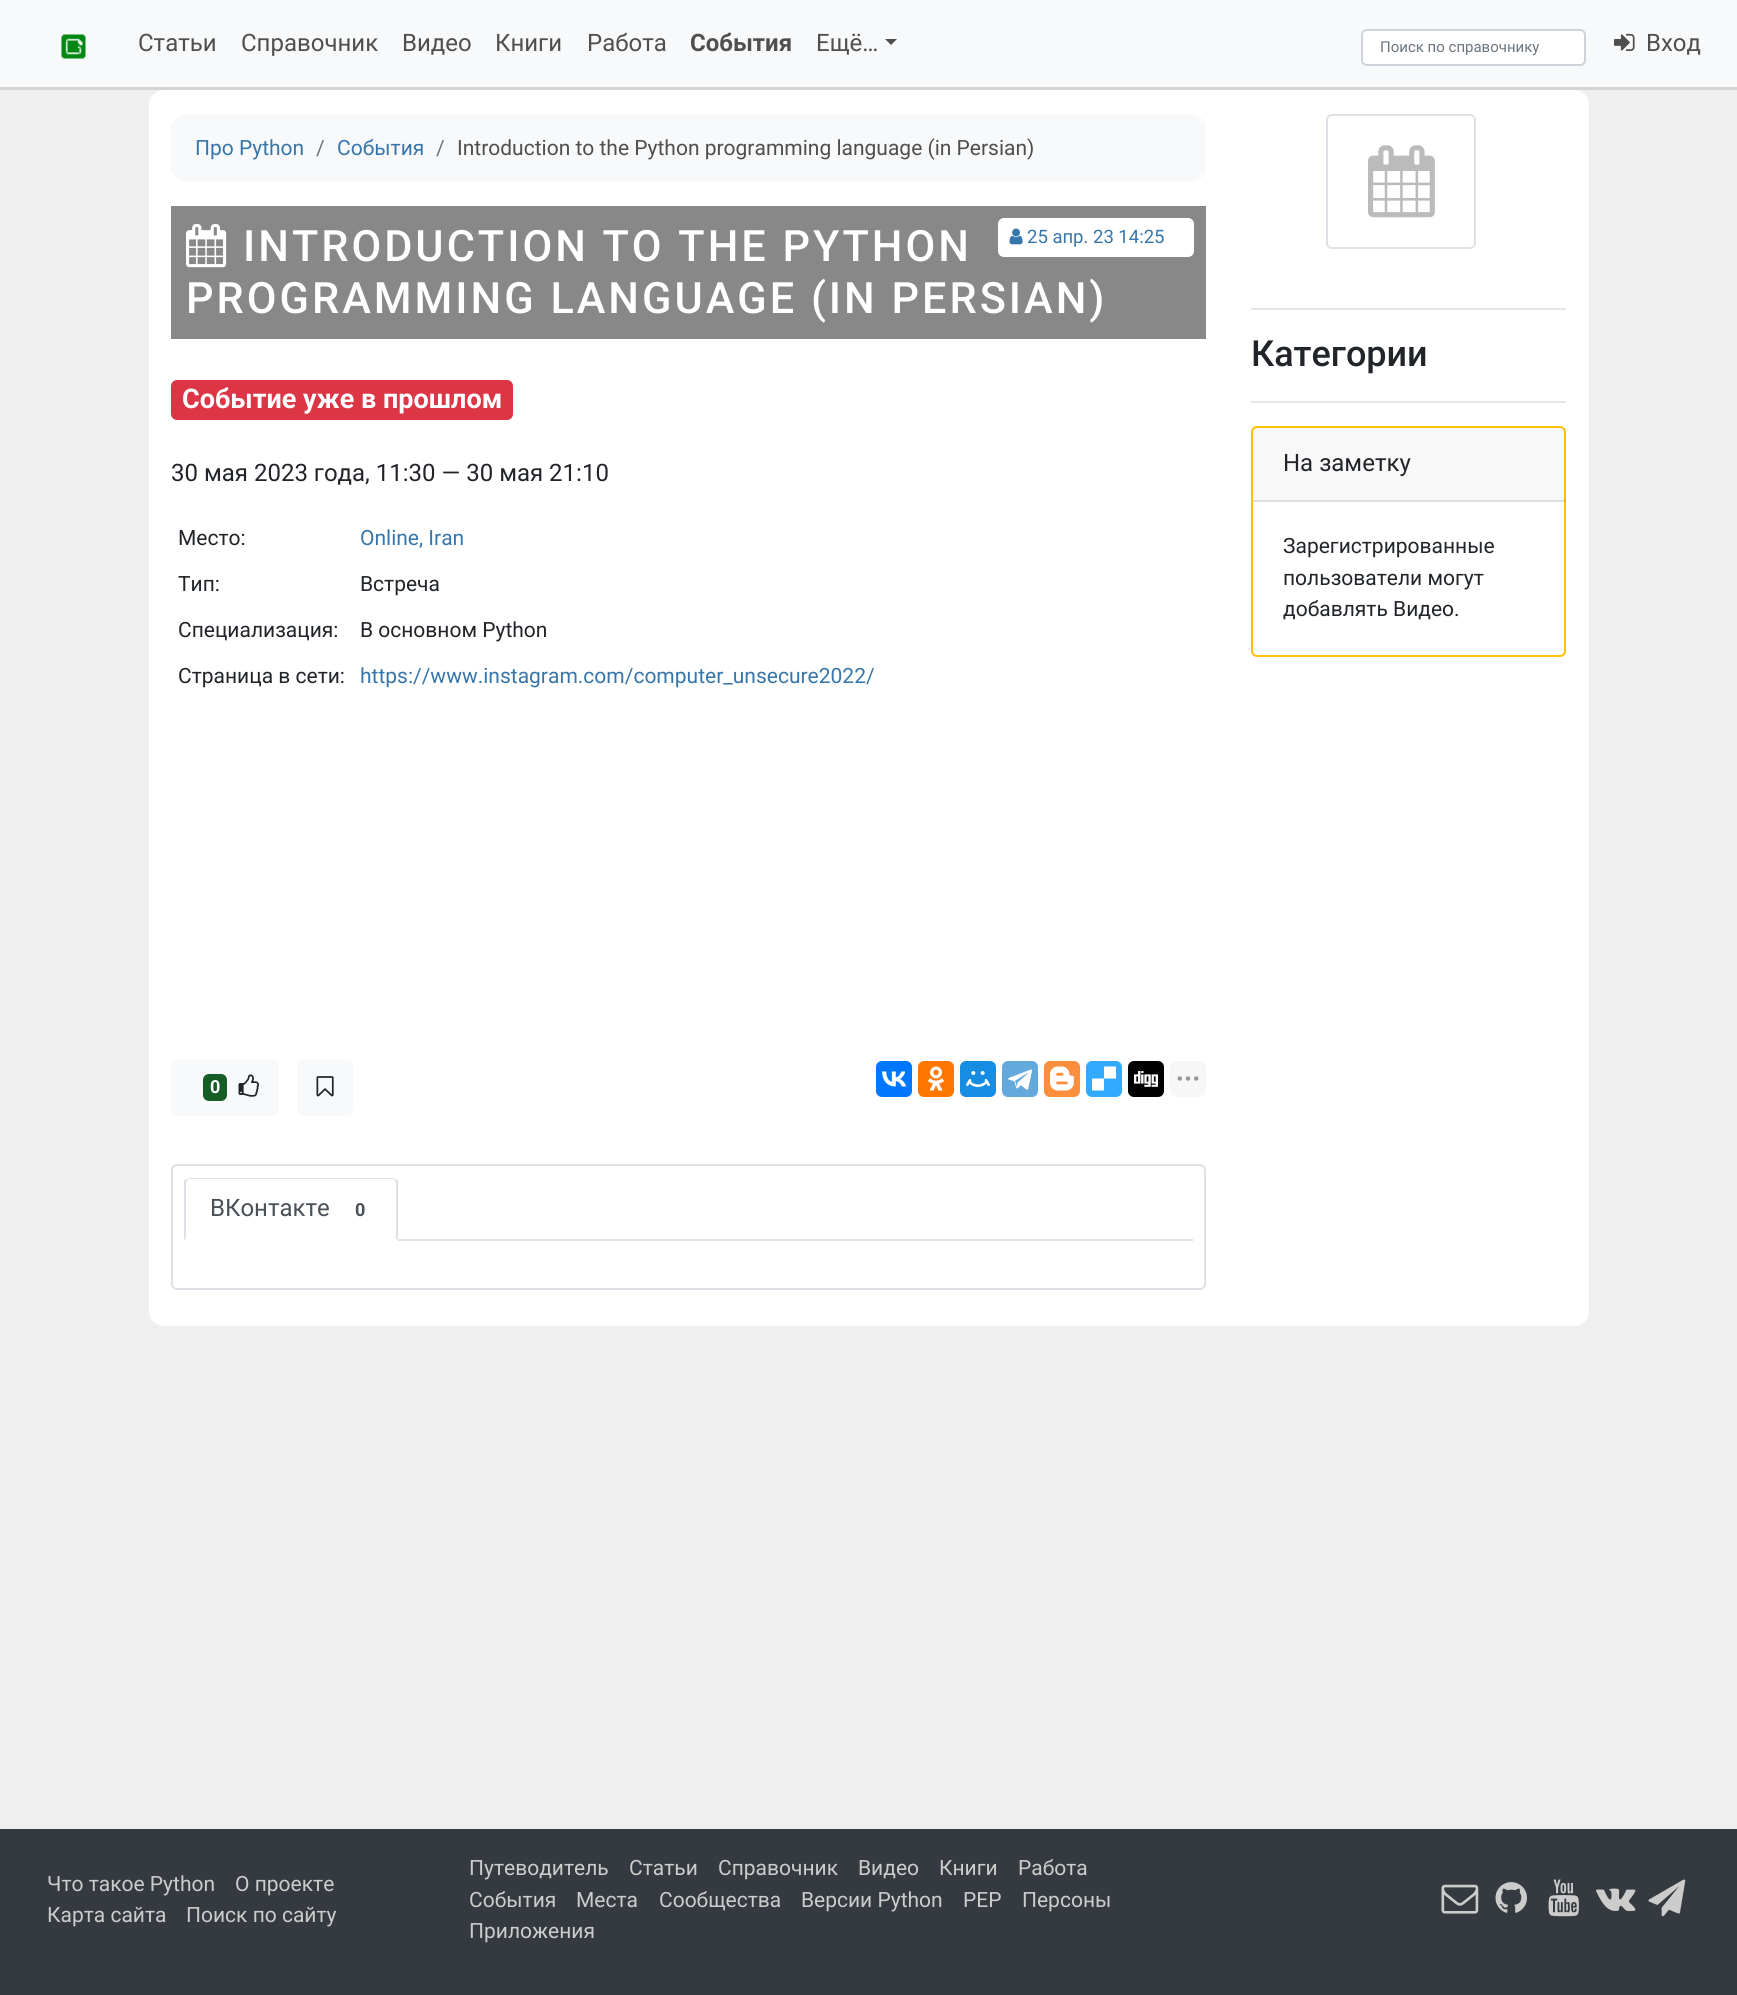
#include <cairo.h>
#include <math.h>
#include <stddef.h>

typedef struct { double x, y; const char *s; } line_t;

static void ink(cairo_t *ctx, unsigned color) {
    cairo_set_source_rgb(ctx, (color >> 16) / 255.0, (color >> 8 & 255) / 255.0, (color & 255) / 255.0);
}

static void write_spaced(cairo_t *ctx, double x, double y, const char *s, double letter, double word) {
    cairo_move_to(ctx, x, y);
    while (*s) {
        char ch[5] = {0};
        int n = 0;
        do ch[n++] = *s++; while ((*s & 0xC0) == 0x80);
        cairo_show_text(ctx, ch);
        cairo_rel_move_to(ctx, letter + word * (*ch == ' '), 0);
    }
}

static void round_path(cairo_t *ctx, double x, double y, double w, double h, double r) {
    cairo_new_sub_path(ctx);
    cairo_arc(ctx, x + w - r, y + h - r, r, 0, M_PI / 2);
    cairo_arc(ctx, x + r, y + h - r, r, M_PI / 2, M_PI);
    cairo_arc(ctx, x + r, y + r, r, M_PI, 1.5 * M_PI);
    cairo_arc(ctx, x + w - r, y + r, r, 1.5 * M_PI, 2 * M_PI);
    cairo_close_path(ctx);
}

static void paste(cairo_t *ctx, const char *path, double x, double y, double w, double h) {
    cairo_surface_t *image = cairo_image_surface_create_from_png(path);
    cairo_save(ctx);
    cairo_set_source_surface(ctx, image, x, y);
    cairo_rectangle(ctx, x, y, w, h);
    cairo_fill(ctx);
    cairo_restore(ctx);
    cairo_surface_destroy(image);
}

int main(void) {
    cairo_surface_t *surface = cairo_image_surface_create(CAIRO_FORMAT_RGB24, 1737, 1995);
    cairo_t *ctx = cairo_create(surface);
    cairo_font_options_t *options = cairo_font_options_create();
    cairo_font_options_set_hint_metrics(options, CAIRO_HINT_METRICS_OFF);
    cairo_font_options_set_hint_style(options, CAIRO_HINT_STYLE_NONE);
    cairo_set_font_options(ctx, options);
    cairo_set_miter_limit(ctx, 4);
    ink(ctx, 0xEFEFEF);
    cairo_paint(ctx);
    ink(ctx, 0xF8F9FA);
    cairo_rectangle(ctx, 0, 0, 1737, 87);
    cairo_fill(ctx);
    ink(ctx, 0xD4D4D4);
    cairo_rectangle(ctx, 0, 87, 1737, 3);
    cairo_fill(ctx);
    paste(ctx, "media/1.png", 61, 34, 25, 25);
    cairo_select_font_face(ctx, "Roboto", CAIRO_FONT_SLANT_NORMAL, CAIRO_FONT_WEIGHT_NORMAL);
    cairo_set_font_size(ctx, 24);
    ink(ctx, 0x4F4F4F);
    {
        static const line_t items[] = {
            {138, 51, "Статьи"},
            {241, 51, "Справочник"},
            {402, 51, "Видео"},
            {495, 51, "Книги"},
            {587, 51, "Работа"},
        };
        for (size_t i = 0; i < sizeof items / sizeof *items; i++) {
            cairo_move_to(ctx, items[i].x, items[i].y);
            cairo_show_text(ctx, items[i].s);
        }
    }
    cairo_select_font_face(ctx, "Roboto", CAIRO_FONT_SLANT_NORMAL, CAIRO_FONT_WEIGHT_BOLD);
    cairo_move_to(ctx, 690, 51);
    cairo_show_text(ctx, "События");
    cairo_select_font_face(ctx, "Roboto", CAIRO_FONT_SLANT_NORMAL, CAIRO_FONT_WEIGHT_NORMAL);
    cairo_move_to(ctx, 816, 51);
    cairo_show_text(ctx, "Ещё…");
    cairo_new_path(ctx);
    cairo_move_to(ctx, 885, 39);
    cairo_line_to(ctx, 897, 39);
    cairo_line_to(ctx, 891, 45);
    cairo_close_path(ctx);
    cairo_fill(ctx);
    ink(ctx, 0xFFFFFF);
    round_path(ctx, 1362, 30, 223, 35, 5);
    cairo_fill_preserve(ctx);
    ink(ctx, 0xCED4DA);
    cairo_stroke(ctx);
    cairo_set_font_size(ctx, 15);
    ink(ctx, 0x6C757D);
    cairo_move_to(ctx, 1380, 52);
    cairo_show_text(ctx, "Поиск по справочнику");
    paste(ctx, "media/2.png", 1614, 33, 21, 18);
    cairo_set_font_size(ctx, 24);
    ink(ctx, 0x4F4F4F);
    cairo_move_to(ctx, 1646, 51);
    cairo_show_text(ctx, "Вход");
    ink(ctx, 0xFFFFFF);
    round_path(ctx, 149, 90, 1440, 1236, 15);
    cairo_fill(ctx);
    ink(ctx, 0xF8F9FA);
    round_path(ctx, 171, 114, 1035, 68, 15);
    cairo_fill(ctx);
    cairo_set_font_size(ctx, 21);
    ink(ctx, 0x3776AB);
    cairo_move_to(ctx, 195, 155);
    cairo_show_text(ctx, "Про Python");
    ink(ctx, 0x6C757D);
    cairo_move_to(ctx, 316, 155);
    cairo_show_text(ctx, "/");
    ink(ctx, 0x3776AB);
    cairo_move_to(ctx, 337, 155);
    cairo_show_text(ctx, "События");
    ink(ctx, 0x6C757D);
    cairo_move_to(ctx, 436, 155);
    cairo_show_text(ctx, "/");
    ink(ctx, 0x4F4F4F);
    cairo_move_to(ctx, 457, 155);
    cairo_show_text(ctx, "Introduction to the Python programming language (in Persian)");
    ink(ctx, 0x888888);
    cairo_rectangle(ctx, 171, 206, 1035, 133);
    cairo_fill(ctx);
    paste(ctx, "media/3.png", 186, 224, 41, 44);
    cairo_select_font_face(ctx, "Roboto Medium", CAIRO_FONT_SLANT_NORMAL, CAIRO_FONT_WEIGHT_NORMAL);
    cairo_set_font_size(ctx, 43.2);
    ink(ctx, 0xFFFFFF);
    write_spaced(ctx, 243, 261, "INTRODUCTION TO THE PYTHON", 3, 0);
    write_spaced(ctx, 186, 313, "PROGRAMMING LANGUAGE (IN PERSIAN)", 3, 0);
    round_path(ctx, 998, 218, 196, 39, 6);
    cairo_fill(ctx);
    paste(ctx, "media/4.png", 1009, 228, 14, 17);
    cairo_select_font_face(ctx, "Roboto", CAIRO_FONT_SLANT_NORMAL, CAIRO_FONT_WEIGHT_NORMAL);
    cairo_set_font_size(ctx, 18.5);
    ink(ctx, 0x3776AB);
    cairo_move_to(ctx, 1027, 243);
    cairo_show_text(ctx, "25 апр. 23 14:25");
    ink(ctx, 0xDC3545);
    round_path(ctx, 171, 380, 342, 40, 6);
    cairo_fill(ctx);
    cairo_select_font_face(ctx, "Roboto", CAIRO_FONT_SLANT_NORMAL, CAIRO_FONT_WEIGHT_BOLD);
    cairo_set_font_size(ctx, 27);
    ink(ctx, 0xFFFFFF);
    cairo_move_to(ctx, 182, 408);
    cairo_show_text(ctx, "Событие уже в прошлом");
    cairo_select_font_face(ctx, "Roboto", CAIRO_FONT_SLANT_NORMAL, CAIRO_FONT_WEIGHT_NORMAL);
    cairo_set_font_size(ctx, 24);
    ink(ctx, 0x212529);
    cairo_move_to(ctx, 171, 481);
    cairo_show_text(ctx, "30 мая 2023 года, 11:30 — 30 мая 21:10");
    cairo_set_font_size(ctx, 21);
    cairo_move_to(ctx, 178, 545);
    cairo_show_text(ctx, "Место:");
    ink(ctx, 0x3776AB);
    cairo_move_to(ctx, 360, 545);
    cairo_show_text(ctx, "Online, Iran");
    ink(ctx, 0x212529);
    {
        static const line_t items[] = {
            {178, 591, "Тип:"},
            {360, 591, "Встреча"},
            {178, 637, "Специализация:"},
            {360, 637, "В основном Python"},
            {178, 683, "Страница в сети:"},
        };
        for (size_t i = 0; i < sizeof items / sizeof *items; i++) {
            cairo_move_to(ctx, items[i].x, items[i].y);
            cairo_show_text(ctx, items[i].s);
        }
    }
    ink(ctx, 0x3776AB);
    cairo_move_to(ctx, 360, 683);
    cairo_show_text(ctx, "https://www.instagram.com/computer_unsecure2022/");
    ink(ctx, 0xF8F9FA);
    round_path(ctx, 171, 1059, 108, 57, 6);
    cairo_fill(ctx);
    ink(ctx, 0x155D25);
    round_path(ctx, 203, 1074, 24, 27, 6);
    cairo_fill(ctx);
    cairo_select_font_face(ctx, "Roboto", CAIRO_FONT_SLANT_NORMAL, CAIRO_FONT_WEIGHT_BOLD);
    cairo_set_font_size(ctx, 18);
    ink(ctx, 0xFFFFFF);
    cairo_move_to(ctx, 210, 1093);
    cairo_show_text(ctx, "0");
    paste(ctx, "media/5.png", 238, 1074, 22, 23);
    ink(ctx, 0xF8F9FA);
    round_path(ctx, 297, 1059, 56, 57, 6);
    cairo_fill(ctx);
    paste(ctx, "media/6.png", 316, 1076, 18, 21);
    ink(ctx, 0x0077FF);
    round_path(ctx, 876, 1061, 36, 36, 6);
    cairo_fill(ctx);
    paste(ctx, "media/7.png", 882, 1071, 24, 16);
    ink(ctx, 0xFF7700);
    round_path(ctx, 918, 1061, 36, 36, 6);
    cairo_fill(ctx);
    paste(ctx, "media/8.png", 928, 1066, 16, 25);
    ink(ctx, 0x168DE2);
    round_path(ctx, 960, 1061, 36, 36, 6);
    cairo_fill(ctx);
    paste(ctx, "media/9.png", 966, 1071, 24, 16);
    ink(ctx, 0x64A9DC);
    round_path(ctx, 1002, 1061, 36, 36, 6);
    cairo_fill(ctx);
    paste(ctx, "media/10.png", 1008, 1069, 24, 21);
    ink(ctx, 0xFB8F3D);
    round_path(ctx, 1044, 1061, 36, 36, 6);
    cairo_fill(ctx);
    paste(ctx, "media/11.png", 1050, 1066, 24, 25);
    ink(ctx, 0x31A9FF);
    round_path(ctx, 1086, 1061, 36, 36, 6);
    cairo_fill(ctx);
    ink(ctx, 0xFFFFFF);
    cairo_set_fill_rule(ctx, CAIRO_FILL_RULE_EVEN_ODD);
    cairo_new_path(ctx);
    cairo_move_to(ctx, 1092, 1078.5);
    cairo_line_to(ctx, 1104, 1078.5);
    cairo_line_to(ctx, 1104, 1090.5);
    cairo_line_to(ctx, 1092, 1090.5);
    cairo_close_path(ctx);
    cairo_move_to(ctx, 1104, 1066.5);
    cairo_line_to(ctx, 1116, 1066.5);
    cairo_line_to(ctx, 1116, 1078.5);
    cairo_line_to(ctx, 1104, 1078.5);
    cairo_close_path(ctx);
    cairo_fill(ctx);
    ink(ctx, 0x000000);
    round_path(ctx, 1128, 1061, 36, 36, 6);
    cairo_fill(ctx);
    paste(ctx, "media/12.png", 1134, 1071, 24, 16);
    ink(ctx, 0xF7F7F7);
    round_path(ctx, 1170, 1061, 36, 36, 6);
    cairo_fill(ctx);
    paste(ctx, "media/13.png", 1177, 1076, 22, 5);
    round_path(ctx, 172, 1165, 1033, 124, 5);
    ink(ctx, 0xDEE2E6);
    cairo_stroke(ctx);
    cairo_rectangle(ctx, 398, 1239, 795, 2);
    cairo_fill(ctx);
    cairo_set_fill_rule(ctx, CAIRO_FILL_RULE_WINDING);
    cairo_new_path(ctx);
    cairo_move_to(ctx, 190, 1178);
    cairo_line_to(ctx, 186, 1179);
    cairo_line_to(ctx, 187, 1180);
    cairo_line_to(ctx, 190, 1179);
    cairo_line_to(ctx, 392, 1179);
    cairo_line_to(ctx, 395, 1180);
    cairo_line_to(ctx, 396, 1179);
    cairo_line_to(ctx, 392, 1178);
    cairo_close_path(ctx);
    cairo_fill(ctx);
    cairo_new_path(ctx);
    cairo_move_to(ctx, 396, 1179);
    cairo_line_to(ctx, 398, 1181);
    cairo_line_to(ctx, 398, 1240);
    cairo_line_to(ctx, 396, 1239);
    cairo_line_to(ctx, 396, 1184);
    cairo_curve_to(ctx, 396, 1182, 395, 1181, 395, 1180);
    cairo_close_path(ctx);
    cairo_fill(ctx);
    ink(ctx, 0xFFFFFF);
    cairo_new_path(ctx);
    cairo_move_to(ctx, 397, 1240);
    cairo_line_to(ctx, 185, 1240);
    cairo_line_to(ctx, 186, 1239);
    cairo_line_to(ctx, 396, 1239);
    cairo_close_path(ctx);
    cairo_fill(ctx);
    ink(ctx, 0xDEE2E6);
    cairo_new_path(ctx);
    cairo_move_to(ctx, 184, 1181);
    cairo_line_to(ctx, 186, 1179);
    cairo_line_to(ctx, 187, 1180);
    cairo_curve_to(ctx, 187, 1181, 186, 1182, 186, 1184);
    cairo_line_to(ctx, 186, 1239);
    cairo_line_to(ctx, 184, 1240);
    cairo_close_path(ctx);
    cairo_fill(ctx);
    cairo_select_font_face(ctx, "Roboto", CAIRO_FONT_SLANT_NORMAL, CAIRO_FONT_WEIGHT_NORMAL);
    cairo_set_font_size(ctx, 24);
    ink(ctx, 0x495057);
    cairo_move_to(ctx, 210, 1216);
    cairo_show_text(ctx, "ВКонтакте");
    cairo_select_font_face(ctx, "Roboto", CAIRO_FONT_SLANT_NORMAL, CAIRO_FONT_WEIGHT_BOLD);
    cairo_set_font_size(ctx, 18);
    cairo_move_to(ctx, 355, 1216);
    cairo_show_text(ctx, "0");
    round_path(ctx, 1327, 115, 148, 133, 5);
    ink(ctx, 0xDEE2E6);
    cairo_stroke(ctx);
    paste(ctx, "media/14.png", 1368, 145, 67, 73);
    ink(ctx, 0xE6E6E6);
    cairo_rectangle(ctx, 1251, 308, 315, 2);
    cairo_fill(ctx);
    cairo_select_font_face(ctx, "Roboto Medium", CAIRO_FONT_SLANT_NORMAL, CAIRO_FONT_WEIGHT_NORMAL);
    cairo_set_font_size(ctx, 36);
    ink(ctx, 0x212529);
    cairo_move_to(ctx, 1251, 366);
    cairo_show_text(ctx, "Категории");
    ink(ctx, 0xE6E6E6);
    cairo_rectangle(ctx, 1251, 401, 315, 2);
    cairo_fill(ctx);
    round_path(ctx, 1252, 427, 313, 229, 5);
    ink(ctx, 0xFFC107);
    cairo_stroke(ctx);
    cairo_set_source_rgba(ctx, 0, 0, 0, 0.03);
    cairo_rectangle(ctx, 1253, 428, 312, 73);
    cairo_fill(ctx);
    cairo_set_source_rgba(ctx, 0, 0, 0, 0.12);
    cairo_rectangle(ctx, 1253, 500, 312, 2);
    cairo_fill(ctx);
    cairo_select_font_face(ctx, "Roboto", CAIRO_FONT_SLANT_NORMAL, CAIRO_FONT_WEIGHT_NORMAL);
    cairo_set_font_size(ctx, 24);
    ink(ctx, 0x212529);
    cairo_move_to(ctx, 1283, 471);
    cairo_show_text(ctx, "На заметку");
    cairo_set_font_size(ctx, 21);
    {
        static const line_t items[] = {
            {1283, 553, "Зарегистрированные"},
            {1283, 585, "пользователи могут"},
            {1283, 616, "добавлять Видео."},
        };
        for (size_t i = 0; i < sizeof items / sizeof *items; i++) {
            cairo_move_to(ctx, items[i].x, items[i].y);
            cairo_show_text(ctx, items[i].s);
        }
    }
    ink(ctx, 0x343A40);
    cairo_rectangle(ctx, 0, 1829, 1737, 166);
    cairo_fill(ctx);
    ink(ctx, 0xCCCCCC);
    {
        static const line_t items[] = {
            {47, 1891, "Что такое Python"},
            {235, 1891, "О проекте"},
            {47, 1922, "Карта сайта"},
            {186, 1922, "Поиск по сайту"},
            {469, 1875, "Путеводитель"},
            {629, 1875, "Статьи"},
            {718, 1875, "Справочник"},
            {858, 1875, "Видео"},
            {939, 1875, "Книги"},
            {1018, 1875, "Работа"},
            {469, 1907, "События"},
            {576, 1907, "Места"},
            {659, 1907, "Сообщества"},
            {801, 1907, "Версии Python"},
            {963, 1907, "PEP"},
            {1022, 1907, "Персоны"},
            {469, 1938, "Приложения"},
        };
        for (size_t i = 0; i < sizeof items / sizeof *items; i++) {
            cairo_move_to(ctx, items[i].x, items[i].y);
            cairo_show_text(ctx, items[i].s);
        }
    }
    paste(ctx, "media/15.png", 1441, 1884, 38, 30);
    paste(ctx, "media/16.png", 1495, 1882, 32, 31);
    paste(ctx, "media/17.png", 1548, 1879, 31, 38);
    paste(ctx, "media/18.png", 1596, 1888, 40, 23);
    paste(ctx, "media/19.png", 1648, 1879, 38, 38);
    cairo_surface_write_to_png(surface, "image.png");
    cairo_font_options_destroy(options);
    cairo_destroy(ctx);
    cairo_surface_destroy(surface);
    return 0;
}
